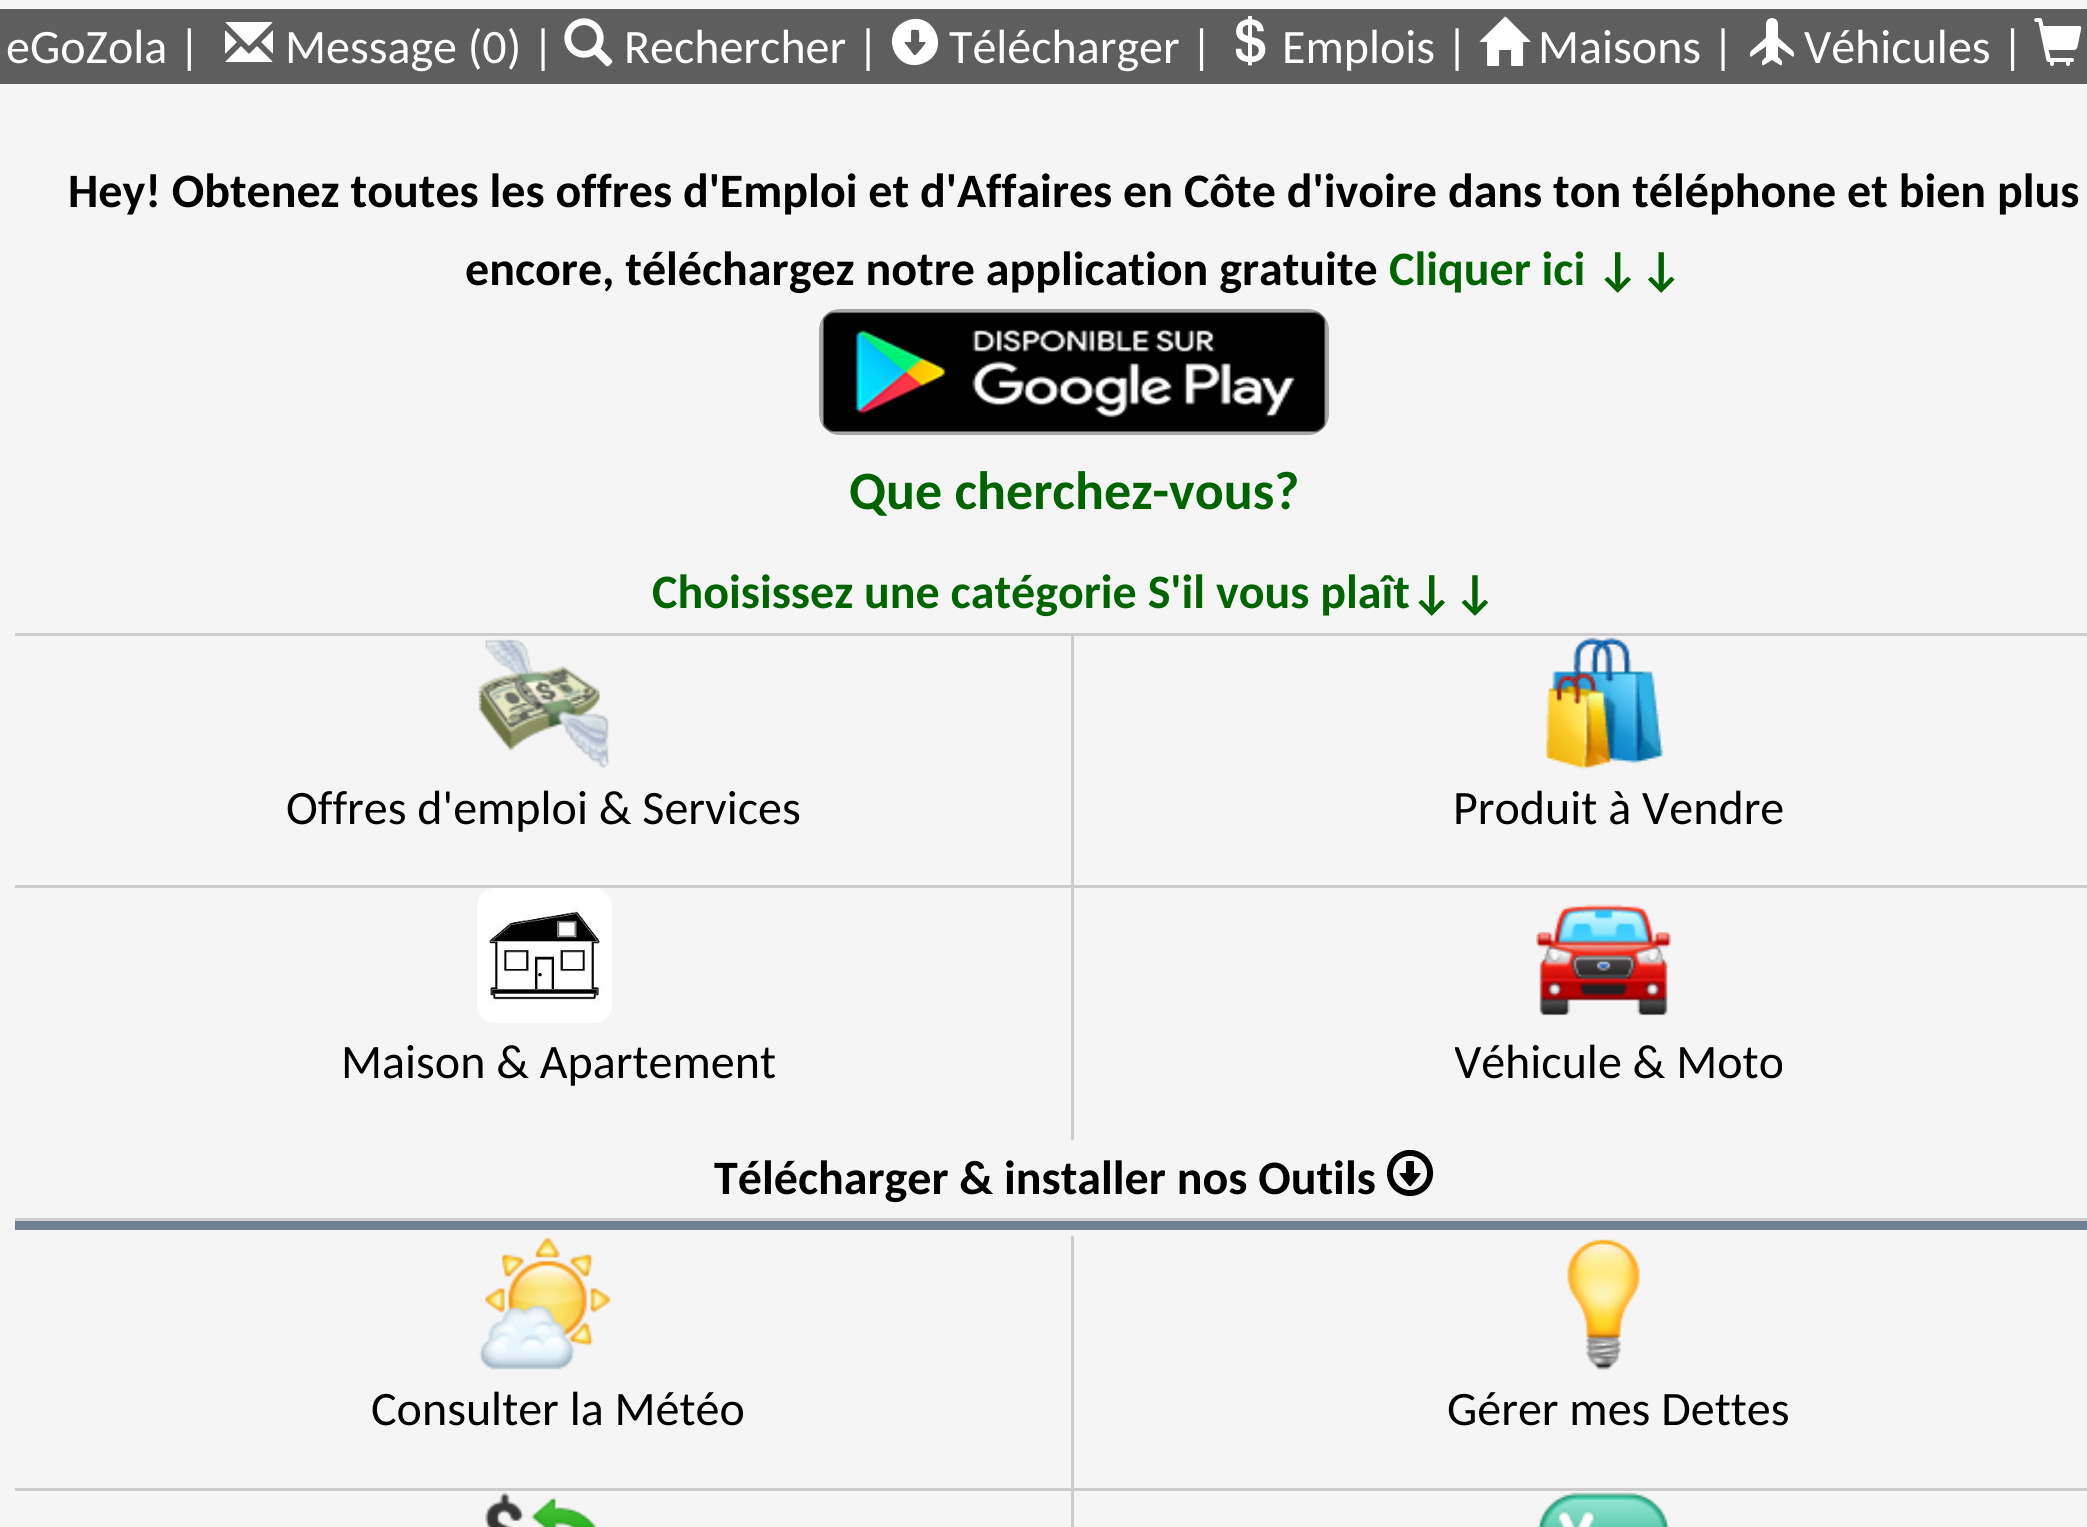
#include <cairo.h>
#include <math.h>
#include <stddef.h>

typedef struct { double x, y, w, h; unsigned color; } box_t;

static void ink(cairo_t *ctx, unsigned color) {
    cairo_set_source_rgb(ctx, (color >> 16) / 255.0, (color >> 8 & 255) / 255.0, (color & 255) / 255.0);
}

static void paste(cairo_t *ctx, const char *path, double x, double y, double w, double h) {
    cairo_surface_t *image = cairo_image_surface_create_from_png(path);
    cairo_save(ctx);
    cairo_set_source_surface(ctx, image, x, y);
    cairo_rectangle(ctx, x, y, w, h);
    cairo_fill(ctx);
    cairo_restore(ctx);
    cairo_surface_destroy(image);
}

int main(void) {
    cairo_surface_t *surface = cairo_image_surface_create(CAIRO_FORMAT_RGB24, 2087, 1527);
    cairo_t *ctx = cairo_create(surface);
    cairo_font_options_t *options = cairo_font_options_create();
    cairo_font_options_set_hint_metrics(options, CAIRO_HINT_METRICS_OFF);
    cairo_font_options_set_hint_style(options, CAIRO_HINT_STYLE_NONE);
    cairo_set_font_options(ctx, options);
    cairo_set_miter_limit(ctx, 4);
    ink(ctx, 0xF5F5F5);
    cairo_paint(ctx);
    ink(ctx, 0x5E5E5E);
    cairo_rectangle(ctx, 0, 9, 2087, 75);
    cairo_fill(ctx);
    cairo_select_font_face(ctx, "Carlito", CAIRO_FONT_SLANT_NORMAL, CAIRO_FONT_WEIGHT_NORMAL);
    cairo_set_font_size(ctx, 48);
    ink(ctx, 0xFFFFFF);
    cairo_move_to(ctx, 6, 63);
    cairo_show_text(ctx, "eGoZola |");
    paste(ctx, "media/1.png", 225, 22, 48, 40);
    cairo_move_to(ctx, 285, 63);
    cairo_show_text(ctx, "Message (0) |");
    paste(ctx, "media/2.png", 564, 18, 49, 49);
    cairo_move_to(ctx, 624, 63);
    cairo_show_text(ctx, "Rechercher |");
    cairo_new_path(ctx);
    cairo_move_to(ctx, 906, 21);
    cairo_curve_to(ctx, 934, 9, 952, 51, 924, 63);
    cairo_curve_to(ctx, 896, 75, 878, 33, 906, 21);
    cairo_close_path(ctx);
    cairo_move_to(ctx, 918, 30);
    cairo_curve_to(ctx, 913, 30, 911, 28, 911, 33);
    cairo_line_to(ctx, 911, 42);
    cairo_curve_to(ctx, 903, 42, 903, 41, 908, 47);
    cairo_curve_to(ctx, 916, 57, 913, 58, 921, 49);
    cairo_curve_to(ctx, 927, 41, 928, 42, 919, 42);
    cairo_curve_to(ctx, 919, 40, 920, 30, 918, 30);
    cairo_close_path(ctx);
    cairo_fill(ctx);
    cairo_move_to(ctx, 949, 63);
    cairo_show_text(ctx, "Télécharger |");
    paste(ctx, "media/3.png", 1235, 16, 31, 50);
    cairo_move_to(ctx, 1282, 63);
    cairo_show_text(ctx, "Emplois |");
    paste(ctx, "media/4.png", 1479, 16, 52, 50);
    cairo_move_to(ctx, 1538, 63);
    cairo_show_text(ctx, "Maisons |");
    paste(ctx, "media/5.png", 1750, 18, 44, 48);
    cairo_move_to(ctx, 1804, 63);
    cairo_show_text(ctx, "Véhicules |");
    paste(ctx, "media/6.png", 2034, 18, 48, 48);
    cairo_select_font_face(ctx, "Carlito", CAIRO_FONT_SLANT_NORMAL, CAIRO_FONT_WEIGHT_BOLD);
    ink(ctx, 0x000000);
    cairo_move_to(ctx, 68, 207);
    cairo_show_text(ctx, "Hey! Obtenez toutes les offres d'Emploi et d'Affaires en Côte d'ivoire dans ton téléphone et bien plus");
    cairo_move_to(ctx, 465, 285);
    cairo_show_text(ctx, "encore, téléchargez notre application gratuite");
    ink(ctx, 0x006400);
    cairo_move_to(ctx, 1389, 285);
    cairo_show_text(ctx, "Cliquer ici ↓↓");
    paste(ctx, "media/7.png", 819, 309, 510, 126);
    cairo_set_font_size(ctx, 54);
    cairo_move_to(ctx, 849, 509);
    cairo_show_text(ctx, "Que cherchez-vous?");
    cairo_set_font_size(ctx, 48);
    cairo_move_to(ctx, 652, 608);
    cairo_show_text(ctx, "Choisissez une catégorie S'il vous plaît↓↓");
    ink(ctx, 0xCCCCCC);
    cairo_rectangle(ctx, 15, 633, 2072, 3);
    cairo_fill(ctx);
    cairo_rectangle(ctx, 1071, 636, 3, 249);
    cairo_fill(ctx);
    paste(ctx, "media/8.png", 478, 639, 132, 130);
    cairo_select_font_face(ctx, "Carlito", CAIRO_FONT_SLANT_NORMAL, CAIRO_FONT_WEIGHT_NORMAL);
    ink(ctx, 0x000000);
    cairo_move_to(ctx, 286, 824);
    cairo_show_text(ctx, "Offres d'emploi & Services");
    paste(ctx, "media/9.png", 1546, 637, 118, 133);
    cairo_move_to(ctx, 1453, 824);
    cairo_show_text(ctx, "Produit à Vendre");
    ink(ctx, 0xCCCCCC);
    cairo_rectangle(ctx, 15, 885, 2072, 3);
    cairo_fill(ctx);
    cairo_rectangle(ctx, 1071, 888, 3, 252);
    cairo_fill(ctx);
    paste(ctx, "media/10.png", 477, 888, 135, 135);
    ink(ctx, 0x000000);
    cairo_move_to(ctx, 341, 1078);
    cairo_show_text(ctx, "Maison & Apartement");
    paste(ctx, "media/11.png", 1536, 904, 135, 112);
    cairo_save(ctx);
    cairo_rectangle(ctx, 1455, 1023, 327, 78);
    cairo_clip(ctx);
    cairo_move_to(ctx, 1454, 1078);
    cairo_show_text(ctx, "Véhicule & Moto");
    cairo_restore(ctx);
    cairo_select_font_face(ctx, "Carlito", CAIRO_FONT_SLANT_NORMAL, CAIRO_FONT_WEIGHT_BOLD);
    cairo_move_to(ctx, 714, 1194);
    cairo_show_text(ctx, "Télécharger & installer nos Outils");
    paste(ctx, "media/12.png", 1386, 1149, 48, 48);
    {
        static const box_t items[] = {
            {15, 1218, 2072, 3, 0xCCCCCC},
            {15, 1221, 2072, 9, 0x708090},
            {1071, 1236, 3, 252, 0xCCCCCC},
        };
        for (size_t i = 0; i < sizeof items / sizeof *items; i++) {
            ink(ctx, items[i].color);
            cairo_rectangle(ctx, items[i].x, items[i].y, items[i].w, items[i].h);
            cairo_fill(ctx);
        }
    }
    paste(ctx, "media/13.png", 479, 1237, 132, 133);
    cairo_select_font_face(ctx, "Carlito", CAIRO_FONT_SLANT_NORMAL, CAIRO_FONT_WEIGHT_NORMAL);
    ink(ctx, 0x000000);
    cairo_move_to(ctx, 371, 1425);
    cairo_show_text(ctx, "Consulter la Météo");
    paste(ctx, "media/14.png", 1567, 1239, 73, 131);
    cairo_move_to(ctx, 1447, 1425);
    cairo_show_text(ctx, "Gérer mes Dettes");
    ink(ctx, 0xCCCCCC);
    cairo_rectangle(ctx, 15, 1488, 2072, 3);
    cairo_fill(ctx);
    cairo_rectangle(ctx, 1071, 1491, 3, 36);
    cairo_fill(ctx);
    paste(ctx, "media/15.png", 485, 1492, 113, 35);
    paste(ctx, "media/16.png", 1537, 1492, 133, 35);
    cairo_surface_write_to_png(surface, "image.png");
    cairo_font_options_destroy(options);
    cairo_destroy(ctx);
    cairo_surface_destroy(surface);
    return 0;
}
